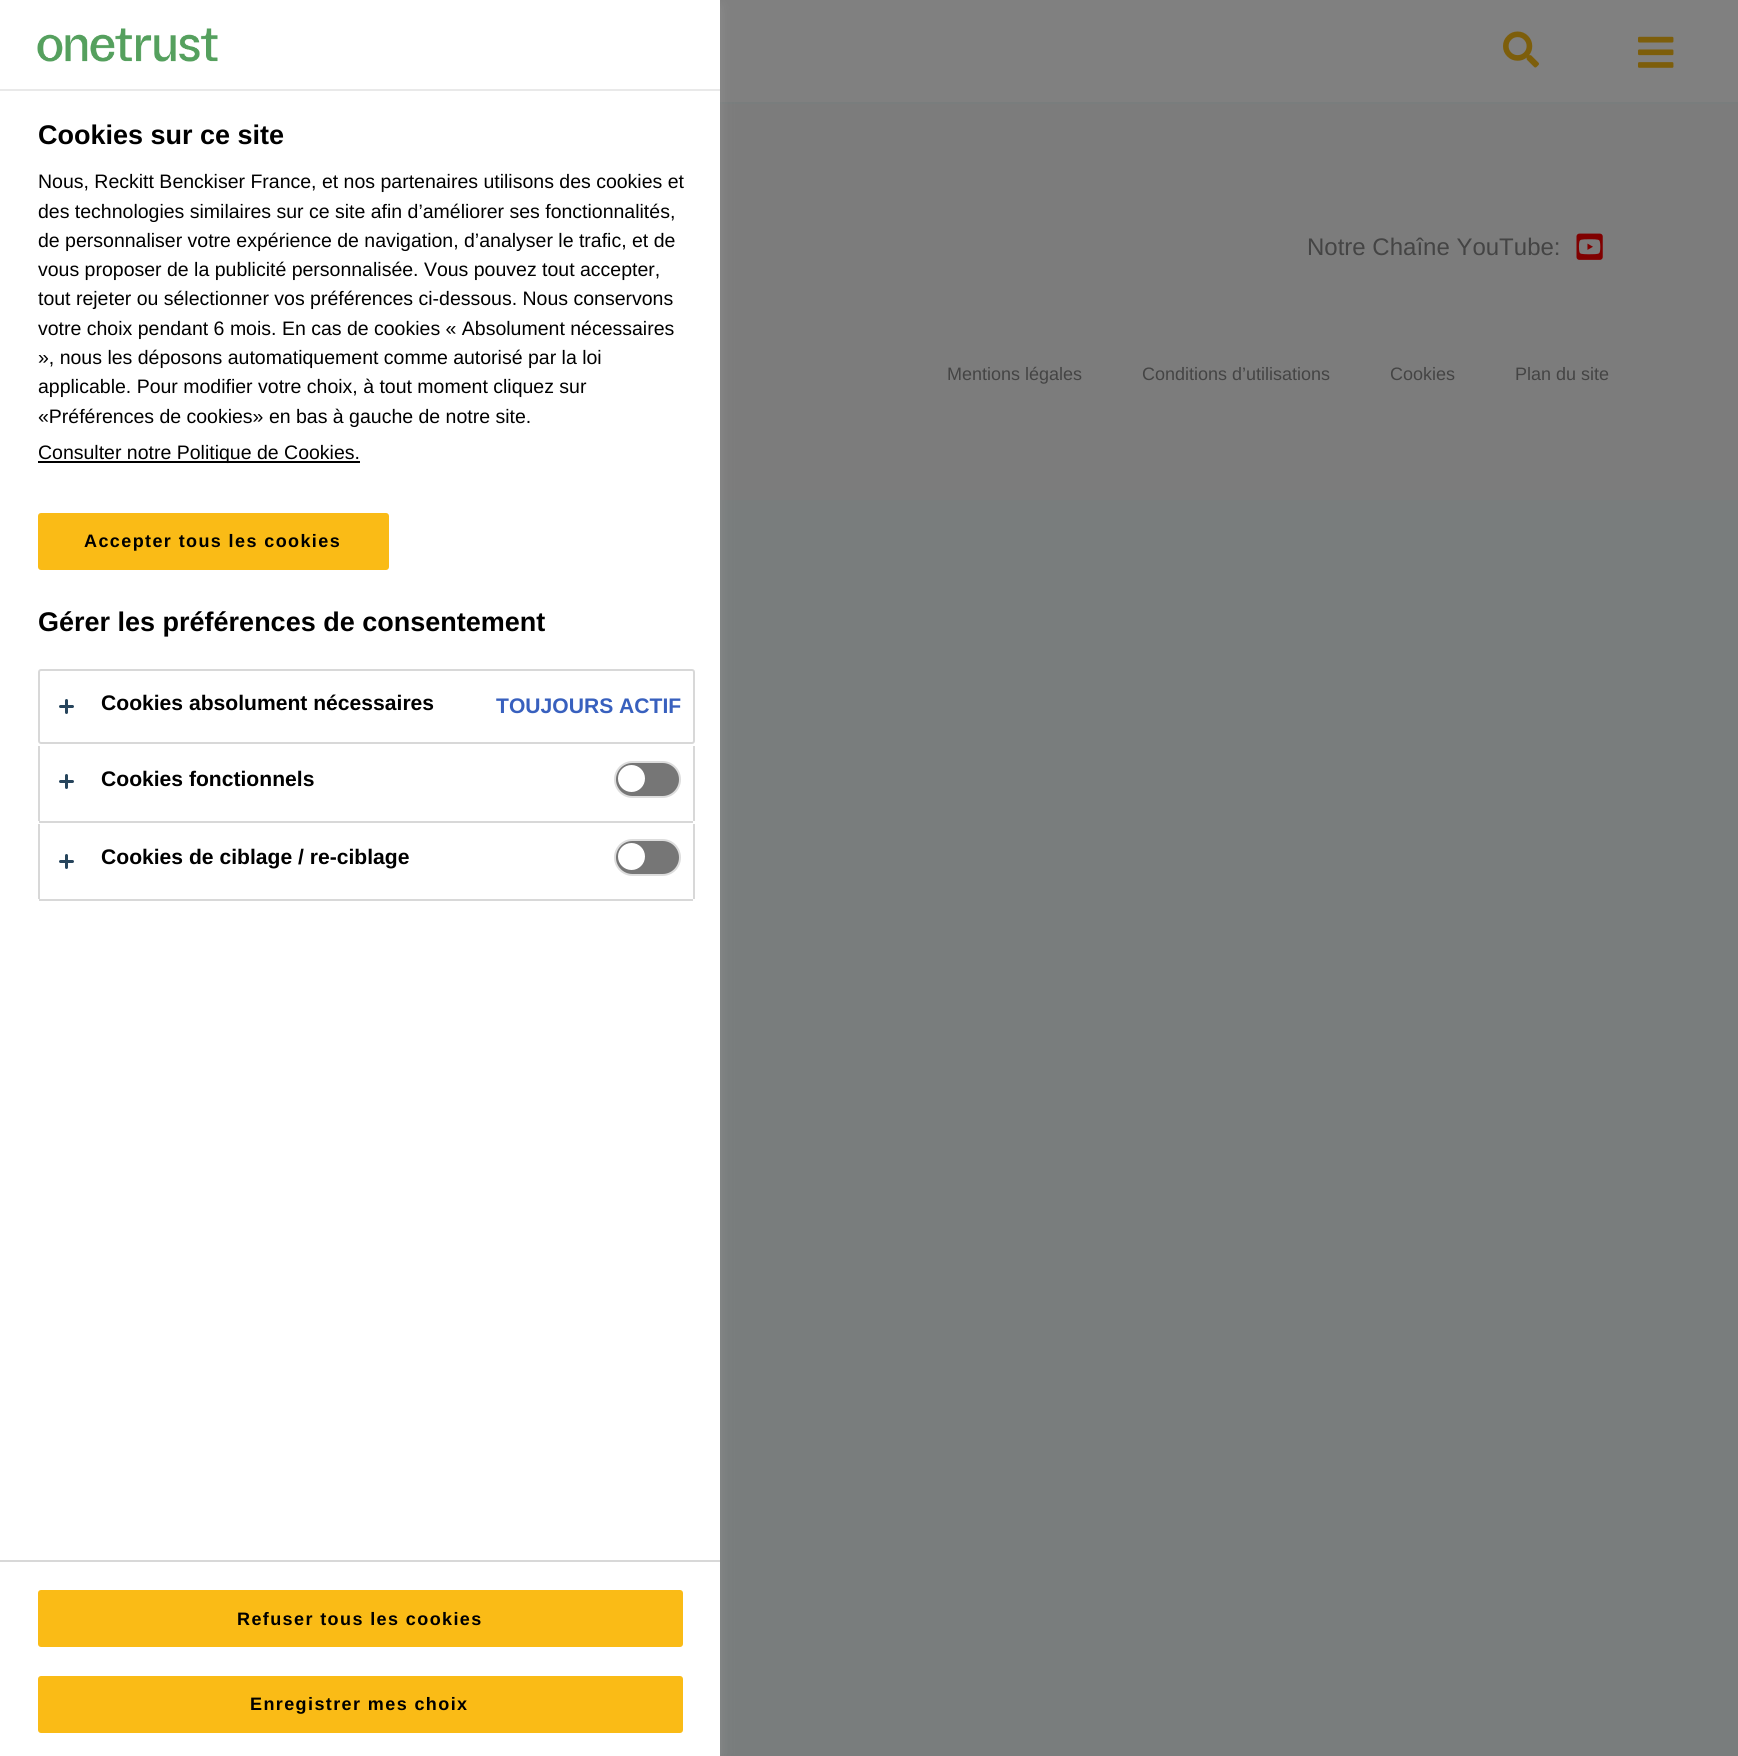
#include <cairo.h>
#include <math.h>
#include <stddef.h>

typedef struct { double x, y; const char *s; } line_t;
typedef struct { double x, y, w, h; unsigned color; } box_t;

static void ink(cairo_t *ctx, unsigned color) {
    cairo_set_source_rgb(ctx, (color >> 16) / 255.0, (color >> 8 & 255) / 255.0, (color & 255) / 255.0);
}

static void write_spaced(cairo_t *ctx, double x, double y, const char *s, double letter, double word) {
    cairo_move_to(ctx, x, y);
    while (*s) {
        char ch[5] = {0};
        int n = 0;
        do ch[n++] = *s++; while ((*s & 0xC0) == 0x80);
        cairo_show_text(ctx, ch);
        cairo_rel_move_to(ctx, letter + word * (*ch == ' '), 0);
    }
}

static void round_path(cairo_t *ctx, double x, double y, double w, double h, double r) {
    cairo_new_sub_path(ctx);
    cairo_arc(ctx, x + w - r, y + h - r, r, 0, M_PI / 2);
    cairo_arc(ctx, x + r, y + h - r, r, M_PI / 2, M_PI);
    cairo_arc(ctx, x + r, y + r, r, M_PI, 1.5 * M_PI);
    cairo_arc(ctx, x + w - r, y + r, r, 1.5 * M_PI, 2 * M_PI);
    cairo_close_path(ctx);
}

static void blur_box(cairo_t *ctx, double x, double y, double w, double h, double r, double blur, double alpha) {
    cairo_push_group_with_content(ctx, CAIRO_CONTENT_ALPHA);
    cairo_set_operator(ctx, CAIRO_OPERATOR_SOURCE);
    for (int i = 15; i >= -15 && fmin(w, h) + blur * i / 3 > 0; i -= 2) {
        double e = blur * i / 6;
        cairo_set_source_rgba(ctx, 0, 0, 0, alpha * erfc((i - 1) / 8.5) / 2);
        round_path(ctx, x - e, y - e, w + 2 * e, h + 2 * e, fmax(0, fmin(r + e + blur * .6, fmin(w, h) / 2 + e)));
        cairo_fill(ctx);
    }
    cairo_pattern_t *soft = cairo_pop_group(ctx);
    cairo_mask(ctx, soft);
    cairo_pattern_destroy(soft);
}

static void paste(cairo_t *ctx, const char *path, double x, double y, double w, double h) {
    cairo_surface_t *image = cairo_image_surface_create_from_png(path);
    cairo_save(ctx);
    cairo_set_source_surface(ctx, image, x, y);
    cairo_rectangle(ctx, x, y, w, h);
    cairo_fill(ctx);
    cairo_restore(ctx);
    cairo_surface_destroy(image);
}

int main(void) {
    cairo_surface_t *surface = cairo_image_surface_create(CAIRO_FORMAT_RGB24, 1738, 1756);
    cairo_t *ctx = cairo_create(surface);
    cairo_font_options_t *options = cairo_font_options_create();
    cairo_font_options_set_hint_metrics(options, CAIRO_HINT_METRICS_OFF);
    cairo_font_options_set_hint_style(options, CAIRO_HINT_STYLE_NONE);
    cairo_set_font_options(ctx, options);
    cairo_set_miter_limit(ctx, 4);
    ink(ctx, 0x797D7D);
    cairo_paint(ctx);
    ink(ctx, 0x808080);
    cairo_rectangle(ctx, 720, 0, 1018, 102);
    cairo_fill(ctx);
    ink(ctx, 0x7C7C7C);
    cairo_rectangle(ctx, 720, 104, 1018, 396);
    cairo_fill(ctx);
    ink(ctx, 0x999999);
    blur_box(ctx, 5, 8, 711, 1747, 0, 7.5, 1);
    ink(ctx, 0xFFFFFF);
    cairo_rectangle(ctx, 0, 0, 720, 1756);
    cairo_fill(ctx);
    ink(ctx, 0xE9E9E9);
    cairo_rectangle(ctx, 0, 89, 720, 2);
    cairo_fill(ctx);
    paste(ctx, "media/1.png", 37, 28, 181, 34);
    cairo_select_font_face(ctx, "Liberation Sans", CAIRO_FONT_SLANT_NORMAL, CAIRO_FONT_WEIGHT_BOLD);
    cairo_set_font_size(ctx, 27);
    ink(ctx, 0x000000);
    cairo_move_to(ctx, 38, 144);
    cairo_show_text(ctx, "Cookies sur ce site");
    cairo_select_font_face(ctx, "Liberation Sans", CAIRO_FONT_SLANT_NORMAL, CAIRO_FONT_WEIGHT_NORMAL);
    cairo_set_font_size(ctx, 19.5);
    {
        static const line_t items[] = {
            {38, 188, "Nous, Reckitt Benckiser France, et nos partenaires utilisons des cookies et"},
            {38, 218, "des technologies similaires sur ce site afin d’améliorer ses fonctionnalités,"},
            {38, 247, "de personnaliser votre expérience de navigation, d’analyser le trafic, et de"},
            {38, 276, "vous proposer de la publicité personnalisée. Vous pouvez tout accepter,"},
            {38, 305, "tout rejeter ou sélectionner vos préférences ci-dessous. Nous conservons"},
            {38, 335, "votre choix pendant 6 mois. En cas de cookies « Absolument nécessaires"},
            {38, 364, "», nous les déposons automatiquement comme autorisé par la loi"},
            {38, 393, "applicable. Pour modifier votre choix, à tout moment cliquez sur"},
            {38, 423, "«Préférences de cookies» en bas à gauche de notre site."},
        };
        for (size_t i = 0; i < sizeof items / sizeof *items; i++) {
            cairo_move_to(ctx, items[i].x, items[i].y);
            cairo_show_text(ctx, items[i].s);
        }
    }
    cairo_rectangle(ctx, 38, 461, 322, 2);
    cairo_fill(ctx);
    cairo_move_to(ctx, 38, 459);
    cairo_show_text(ctx, "Consulter notre Politique de Cookies.");
    ink(ctx, 0xFABB16);
    round_path(ctx, 39, 514, 349, 55, 2);
    cairo_fill_preserve(ctx);
    cairo_stroke(ctx);
    cairo_select_font_face(ctx, "Liberation Sans", CAIRO_FONT_SLANT_NORMAL, CAIRO_FONT_WEIGHT_BOLD);
    cairo_set_font_size(ctx, 18);
    ink(ctx, 0x000000);
    write_spaced(ctx, 84, 547, "Accepter tous les cookies", 1.4, 0);
    cairo_set_font_size(ctx, 27);
    cairo_move_to(ctx, 38, 631);
    cairo_show_text(ctx, "Gérer les préférences de consentement");
    round_path(ctx, 39, 670, 655, 73, 2);
    ink(ctx, 0xD8D8D8);
    cairo_stroke(ctx);
    ink(ctx, 0x27455C);
    round_path(ctx, 65, 699, 3, 15, 1.5);
    cairo_fill(ctx);
    round_path(ctx, 59, 705, 15, 3, 1.5);
    cairo_fill(ctx);
    cairo_set_font_size(ctx, 21.1);
    ink(ctx, 0x000000);
    cairo_move_to(ctx, 101, 710);
    cairo_show_text(ctx, "Cookies absolument nécessaires");
    ink(ctx, 0x3860BE);
    cairo_move_to(ctx, 496, 713);
    cairo_show_text(ctx, "TOUJOURS ACTIF");
    {
        static const box_t items[] = {
            {693, 746, 2, 75, 0xD8D8D8},
            {39, 821, 654, 2, 0xD8D8D8},
            {38, 746, 2, 75, 0xD8D8D8},
        };
        for (size_t i = 0; i < sizeof items / sizeof *items; i++) {
            ink(ctx, items[i].color);
            cairo_rectangle(ctx, items[i].x, items[i].y, items[i].w, items[i].h);
            cairo_fill(ctx);
        }
    }
    ink(ctx, 0x27455C);
    round_path(ctx, 65, 774, 3, 15, 1.5);
    cairo_fill(ctx);
    round_path(ctx, 59, 780, 15, 3, 1.5);
    cairo_fill(ctx);
    ink(ctx, 0x000000);
    cairo_move_to(ctx, 101, 786);
    cairo_show_text(ctx, "Cookies fonctionnels");
    ink(ctx, 0x767676);
    round_path(ctx, 615, 762, 65, 35, 17.5);
    cairo_fill_preserve(ctx);
    ink(ctx, 0xDDDDDD);
    cairo_stroke(ctx);
    ink(ctx, 0xFFFFFF);
    cairo_arc(ctx, 631.5, 778.5, 13.5, 0, 2 * M_PI);
    cairo_fill(ctx);
    {
        static const box_t items[] = {
            {693, 824, 2, 75, 0xD8D8D8},
            {39, 899, 654, 2, 0xD8D8D8},
            {38, 824, 2, 75, 0xD8D8D8},
        };
        for (size_t i = 0; i < sizeof items / sizeof *items; i++) {
            ink(ctx, items[i].color);
            cairo_rectangle(ctx, items[i].x, items[i].y, items[i].w, items[i].h);
            cairo_fill(ctx);
        }
    }
    ink(ctx, 0x27455C);
    round_path(ctx, 65, 854, 3, 15, 1.5);
    cairo_fill(ctx);
    round_path(ctx, 59, 860, 15, 3, 1.5);
    cairo_fill(ctx);
    ink(ctx, 0x000000);
    cairo_move_to(ctx, 101, 864);
    cairo_show_text(ctx, "Cookies de ciblage / re-ciblage");
    ink(ctx, 0x767676);
    round_path(ctx, 615, 840, 65, 35, 17.5);
    cairo_fill_preserve(ctx);
    ink(ctx, 0xDDDDDD);
    cairo_stroke(ctx);
    ink(ctx, 0xFFFFFF);
    cairo_arc(ctx, 631.5, 856.5, 13.5, 0, 2 * M_PI);
    cairo_fill(ctx);
    ink(ctx, 0xD8D8D8);
    cairo_rectangle(ctx, 0, 1560, 720, 2);
    cairo_fill(ctx);
    ink(ctx, 0xFABB16);
    round_path(ctx, 39, 1591, 643, 55, 2);
    cairo_fill_preserve(ctx);
    cairo_stroke(ctx);
    cairo_set_font_size(ctx, 18);
    ink(ctx, 0x000000);
    write_spaced(ctx, 237, 1625, "Refuser tous les cookies", 1.4, 0);
    ink(ctx, 0xFABB16);
    round_path(ctx, 39, 1677, 643, 55, 2);
    cairo_fill_preserve(ctx);
    cairo_stroke(ctx);
    ink(ctx, 0x000000);
    write_spaced(ctx, 250, 1710, "Enregistrer mes choix", 1.4, 0);
    paste(ctx, "media/2.png", 1503, 31, 36, 37);
    paste(ctx, "media/3.png", 1638, 36, 36, 32);
    cairo_select_font_face(ctx, "Liberation Sans", CAIRO_FONT_SLANT_NORMAL, CAIRO_FONT_WEIGHT_NORMAL);
    cairo_set_font_size(ctx, 24);
    ink(ctx, 0x444444);
    cairo_move_to(ctx, 1307, 255);
    cairo_show_text(ctx, "Notre Chaîne YouTube:");
    paste(ctx, "media/4.png", 1576, 233, 27, 27);
    cairo_set_font_size(ctx, 18);
    {
        static const line_t items[] = {
            {947, 380, "Mentions légales"},
            {1142, 380, "Conditions d’utilisations"},
            {1390, 380, "Cookies"},
            {1515, 380, "Plan du site"},
        };
        for (size_t i = 0; i < sizeof items / sizeof *items; i++) {
            cairo_move_to(ctx, items[i].x, items[i].y);
            cairo_show_text(ctx, items[i].s);
        }
    }
    cairo_surface_write_to_png(surface, "image.png");
    cairo_font_options_destroy(options);
    cairo_destroy(ctx);
    cairo_surface_destroy(surface);
    return 0;
}
